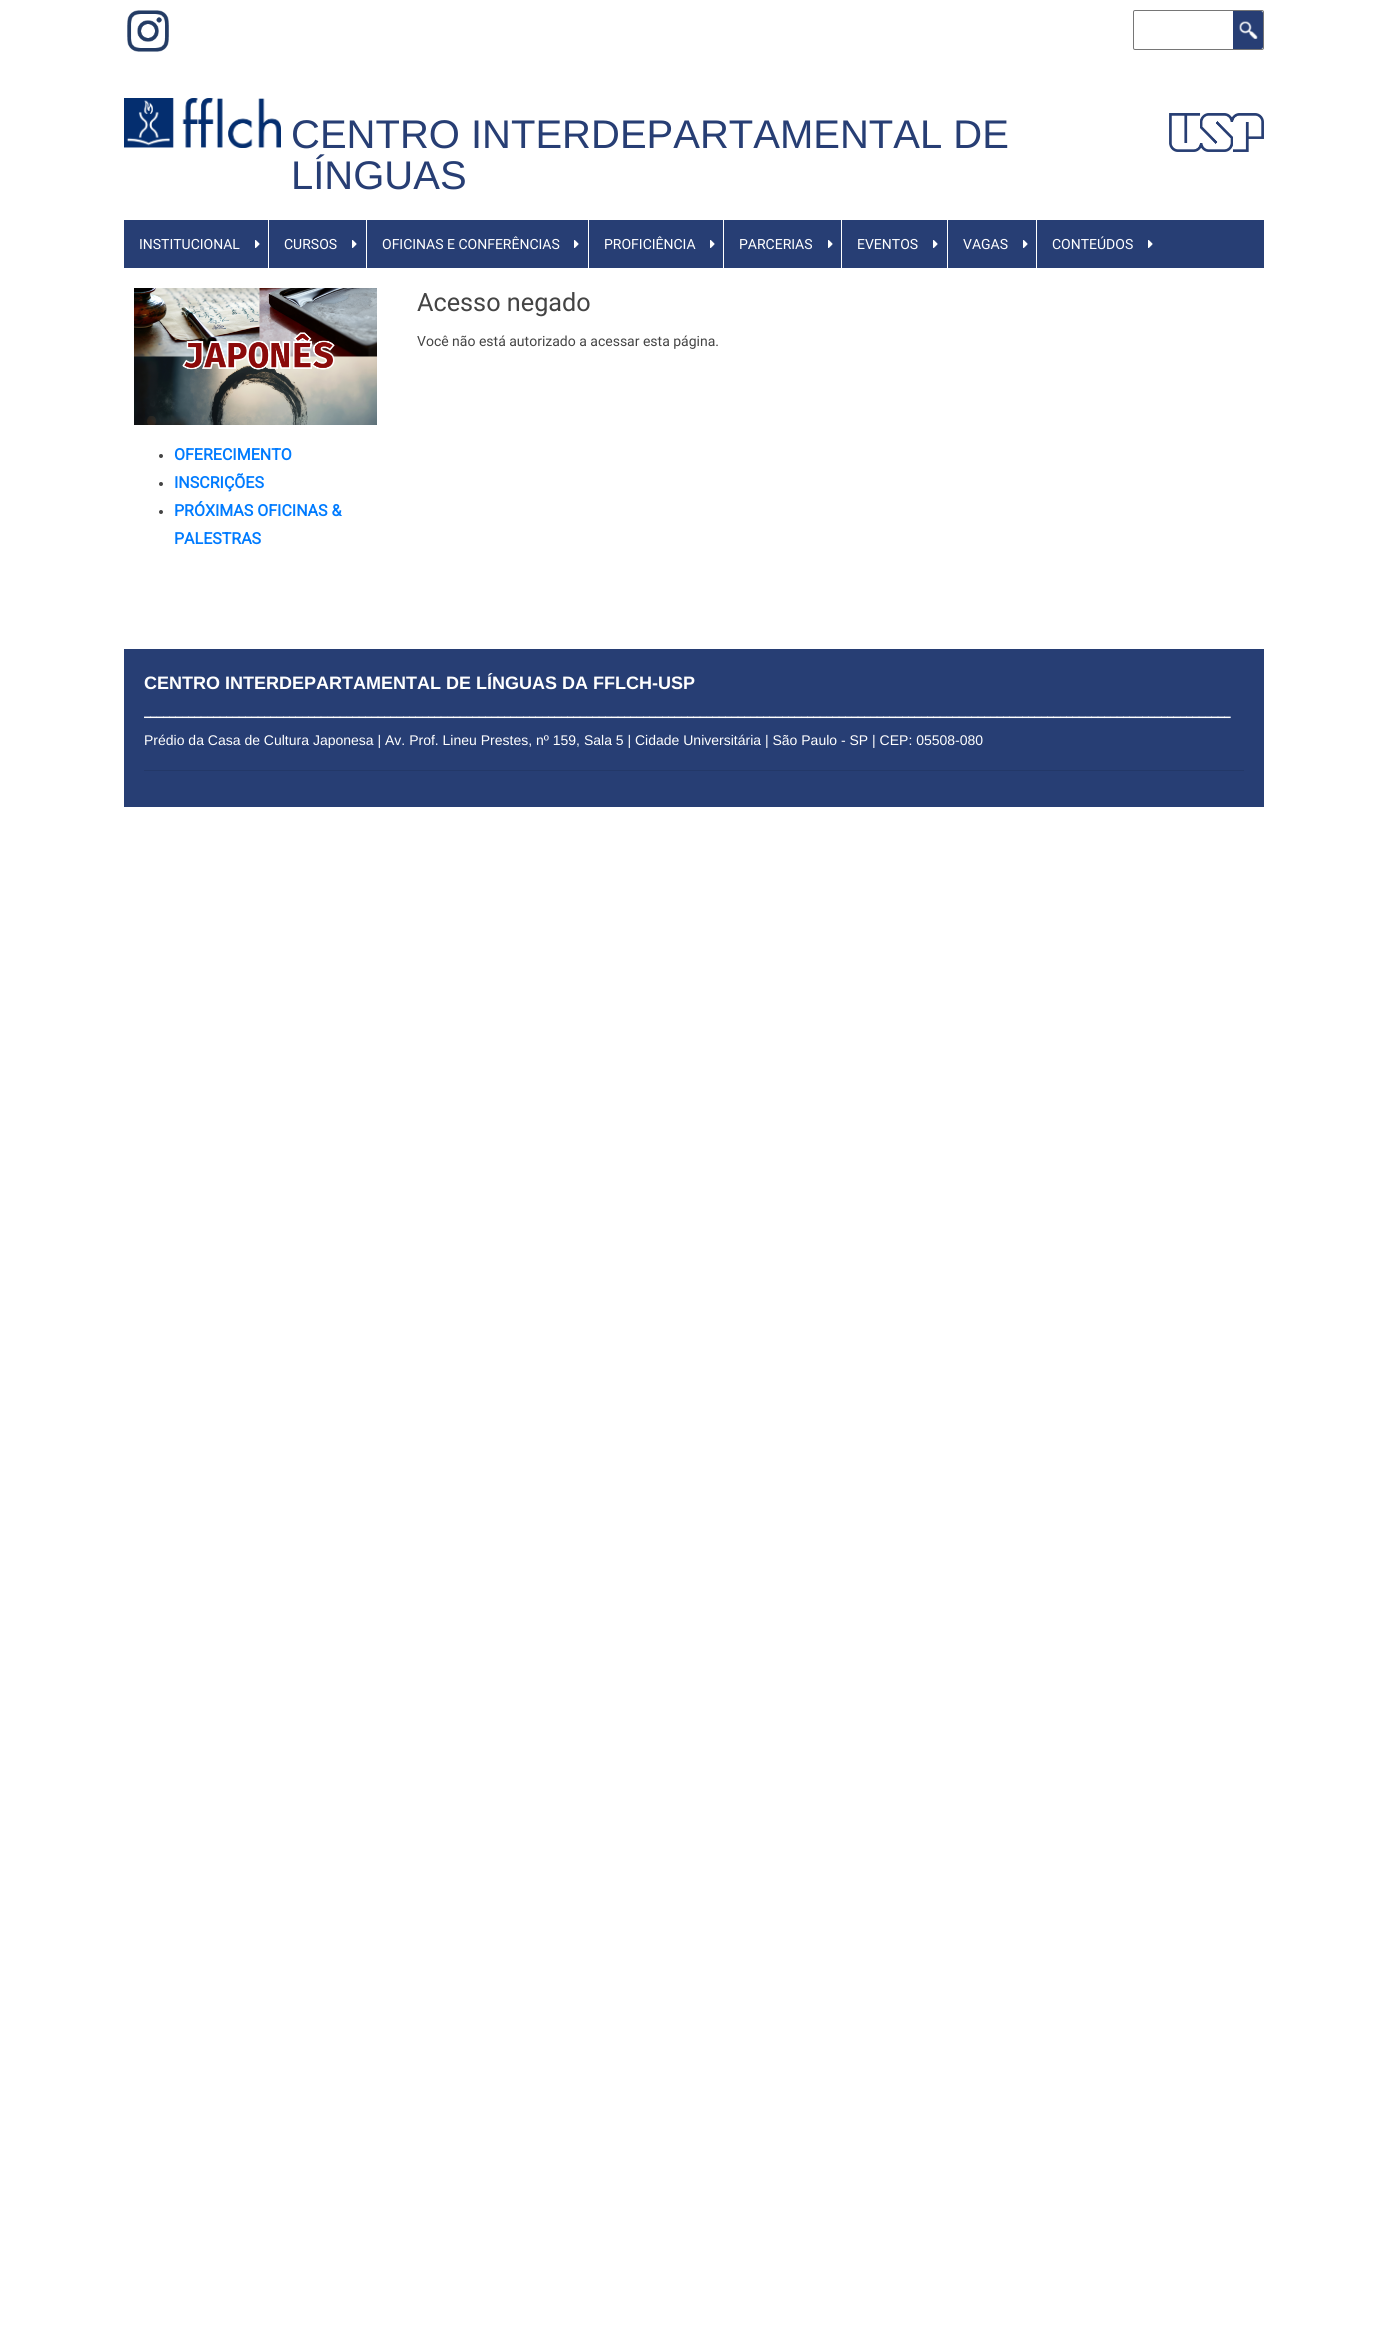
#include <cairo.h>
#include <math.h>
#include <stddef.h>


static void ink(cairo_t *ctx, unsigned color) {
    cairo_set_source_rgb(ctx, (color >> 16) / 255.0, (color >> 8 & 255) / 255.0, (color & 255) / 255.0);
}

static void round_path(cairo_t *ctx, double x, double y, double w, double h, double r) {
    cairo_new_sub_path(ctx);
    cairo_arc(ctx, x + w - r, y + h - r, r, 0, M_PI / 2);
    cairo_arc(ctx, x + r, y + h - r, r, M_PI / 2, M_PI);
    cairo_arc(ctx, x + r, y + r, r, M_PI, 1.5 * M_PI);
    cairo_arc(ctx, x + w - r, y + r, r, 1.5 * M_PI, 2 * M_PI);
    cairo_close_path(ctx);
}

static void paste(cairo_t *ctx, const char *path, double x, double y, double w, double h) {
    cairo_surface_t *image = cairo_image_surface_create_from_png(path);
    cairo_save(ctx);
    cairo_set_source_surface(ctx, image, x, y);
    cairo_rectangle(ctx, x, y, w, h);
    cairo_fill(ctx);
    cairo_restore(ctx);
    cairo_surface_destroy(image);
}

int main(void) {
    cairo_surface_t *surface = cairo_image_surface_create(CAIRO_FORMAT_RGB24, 1388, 2334);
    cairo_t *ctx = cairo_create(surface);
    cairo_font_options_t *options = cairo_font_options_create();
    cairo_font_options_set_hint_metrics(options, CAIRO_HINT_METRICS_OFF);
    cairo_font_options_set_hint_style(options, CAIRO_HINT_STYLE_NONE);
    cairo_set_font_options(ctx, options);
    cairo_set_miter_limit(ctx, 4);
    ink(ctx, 0xFFFFFF);
    cairo_paint(ctx);
    paste(ctx, "media/1.png", 127, 10, 42, 42);
    round_path(ctx, 1133.5, 10.5, 130, 39, 1.5);
    ink(ctx, 0x767676);
    cairo_set_line_width(ctx, 1);
    cairo_stroke(ctx);
    ink(ctx, 0x273E74);
    cairo_new_path(ctx);
    cairo_move_to(ctx, 1233, 11);
    cairo_line_to(ctx, 1261, 11);
    cairo_curve_to(ctx, 1262, 11, 1263, 12, 1263, 13);
    cairo_line_to(ctx, 1263, 47);
    cairo_curve_to(ctx, 1263, 48, 1262, 49, 1261, 49);
    cairo_line_to(ctx, 1233, 49);
    cairo_close_path(ctx);
    cairo_fill(ctx);
    paste(ctx, "media/2.png", 1239, 21, 19, 18);
    paste(ctx, "media/3.png", 124, 98, 157, 50);
    cairo_select_font_face(ctx, "Liberation Sans", CAIRO_FONT_SLANT_NORMAL, CAIRO_FONT_WEIGHT_NORMAL);
    cairo_set_font_size(ctx, 40);
    cairo_move_to(ctx, 291, 148);
    cairo_show_text(ctx, "CENTRO INTERDEPARTAMENTAL DE");
    cairo_move_to(ctx, 291, 189);
    cairo_show_text(ctx, "LÍNGUAS");
    paste(ctx, "media/4.png", 1169, 113, 95, 39);
    cairo_rectangle(ctx, 124, 220, 1140, 48);
    cairo_fill(ctx);
    ink(ctx, 0xFFFFFF);
    cairo_rectangle(ctx, 268, 220, 1, 48);
    cairo_fill(ctx);
    cairo_select_font_face(ctx, "Roboto", CAIRO_FONT_SLANT_NORMAL, CAIRO_FONT_WEIGHT_NORMAL);
    cairo_set_font_size(ctx, 14);
    cairo_move_to(ctx, 139, 249);
    cairo_show_text(ctx, "INSTITUCIONAL");
    paste(ctx, "media/5.png", 255, 240, 5, 8);
    cairo_rectangle(ctx, 366, 220, 1, 48);
    cairo_fill(ctx);
    cairo_move_to(ctx, 284, 249);
    cairo_show_text(ctx, "CURSOS");
    paste(ctx, "media/5.png", 352, 240, 5, 8);
    cairo_rectangle(ctx, 588, 220, 1, 48);
    cairo_fill(ctx);
    cairo_move_to(ctx, 382, 249);
    cairo_show_text(ctx, "OFICINAS E CONFERÊNCIAS");
    paste(ctx, "media/5.png", 574, 240, 5, 8);
    cairo_rectangle(ctx, 723, 220, 1, 48);
    cairo_fill(ctx);
    cairo_move_to(ctx, 604, 249);
    cairo_show_text(ctx, "PROFICIÊNCIA");
    paste(ctx, "media/5.png", 710, 240, 5, 8);
    cairo_rectangle(ctx, 841, 220, 1, 48);
    cairo_fill(ctx);
    cairo_move_to(ctx, 739, 249);
    cairo_show_text(ctx, "PARCERIAS");
    paste(ctx, "media/5.png", 828, 240, 5, 8);
    cairo_rectangle(ctx, 947, 220, 1, 48);
    cairo_fill(ctx);
    cairo_move_to(ctx, 857, 249);
    cairo_show_text(ctx, "EVENTOS");
    paste(ctx, "media/5.png", 933, 240, 5, 8);
    cairo_rectangle(ctx, 1036, 220, 1, 48);
    cairo_fill(ctx);
    cairo_move_to(ctx, 963, 249);
    cairo_show_text(ctx, "VAGAS");
    paste(ctx, "media/5.png", 1023, 240, 5, 8);
    cairo_move_to(ctx, 1052, 249);
    cairo_show_text(ctx, "CONTEÚDOS");
    paste(ctx, "media/5.png", 1148, 240, 5, 8);
    cairo_set_font_size(ctx, 25.25);
    ink(ctx, 0x444444);
    cairo_move_to(ctx, 417, 311);
    cairo_show_text(ctx, "Acesso negado");
    cairo_set_font_size(ctx, 14);
    cairo_move_to(ctx, 417, 346);
    cairo_show_text(ctx, "Você não está autorizado a acessar esta página.");
    paste(ctx, "media/6.png", 134, 288, 243, 137);
    cairo_arc(ctx, 161, 456, 2, 0, 2 * M_PI);
    cairo_fill(ctx);
    cairo_select_font_face(ctx, "Roboto", CAIRO_FONT_SLANT_NORMAL, CAIRO_FONT_WEIGHT_BOLD);
    cairo_set_font_size(ctx, 16);
    ink(ctx, 0x007BFF);
    cairo_move_to(ctx, 174, 460);
    cairo_show_text(ctx, "OFERECIMENTO");
    ink(ctx, 0x444444);
    cairo_new_path(ctx);
    cairo_arc(ctx, 161, 484, 2, 0, 2 * M_PI);
    cairo_fill(ctx);
    ink(ctx, 0x007BFF);
    cairo_move_to(ctx, 174, 488);
    cairo_show_text(ctx, "INSCRIÇÕES");
    ink(ctx, 0x444444);
    cairo_new_path(ctx);
    cairo_arc(ctx, 161, 512, 2, 0, 2 * M_PI);
    cairo_fill(ctx);
    ink(ctx, 0x007BFF);
    cairo_move_to(ctx, 174, 516);
    cairo_show_text(ctx, "PRÓXIMAS OFICINAS &");
    cairo_move_to(ctx, 174, 544);
    cairo_show_text(ctx, "PALESTRAS");
    ink(ctx, 0x273E74);
    cairo_rectangle(ctx, 124, 649, 1140, 158);
    cairo_fill(ctx);
    cairo_select_font_face(ctx, "Liberation Sans", CAIRO_FONT_SLANT_NORMAL, CAIRO_FONT_WEIGHT_BOLD);
    cairo_set_font_size(ctx, 18);
    ink(ctx, 0xFFFFFF);
    cairo_move_to(ctx, 144, 689);
    cairo_show_text(ctx, "CENTRO INTERDEPARTAMENTAL DE LÍNGUAS DA FFLCH-USP");
    cairo_select_font_face(ctx, "Roboto", CAIRO_FONT_SLANT_NORMAL, CAIRO_FONT_WEIGHT_BOLD);
    cairo_set_font_size(ctx, 14);
    cairo_move_to(ctx, 144, 717);
    cairo_show_text(ctx, "____________________________________________________________________________________________________________________________________________________________________________");
    cairo_select_font_face(ctx, "Liberation Sans", CAIRO_FONT_SLANT_NORMAL, CAIRO_FONT_WEIGHT_NORMAL);
    cairo_move_to(ctx, 144, 745);
    cairo_show_text(ctx, "Prédio da Casa de Cultura Japonesa | Av. Prof. Lineu Prestes, nº 159, Sala 5 | Cidade Universitária | São Paulo - SP | CEP: 05508-080");
    ink(ctx, 0x233868);
    cairo_rectangle(ctx, 144, 770, 1100, 1);
    cairo_fill(ctx);
    cairo_surface_write_to_png(surface, "image.png");
    cairo_font_options_destroy(options);
    cairo_destroy(ctx);
    cairo_surface_destroy(surface);
    return 0;
}
